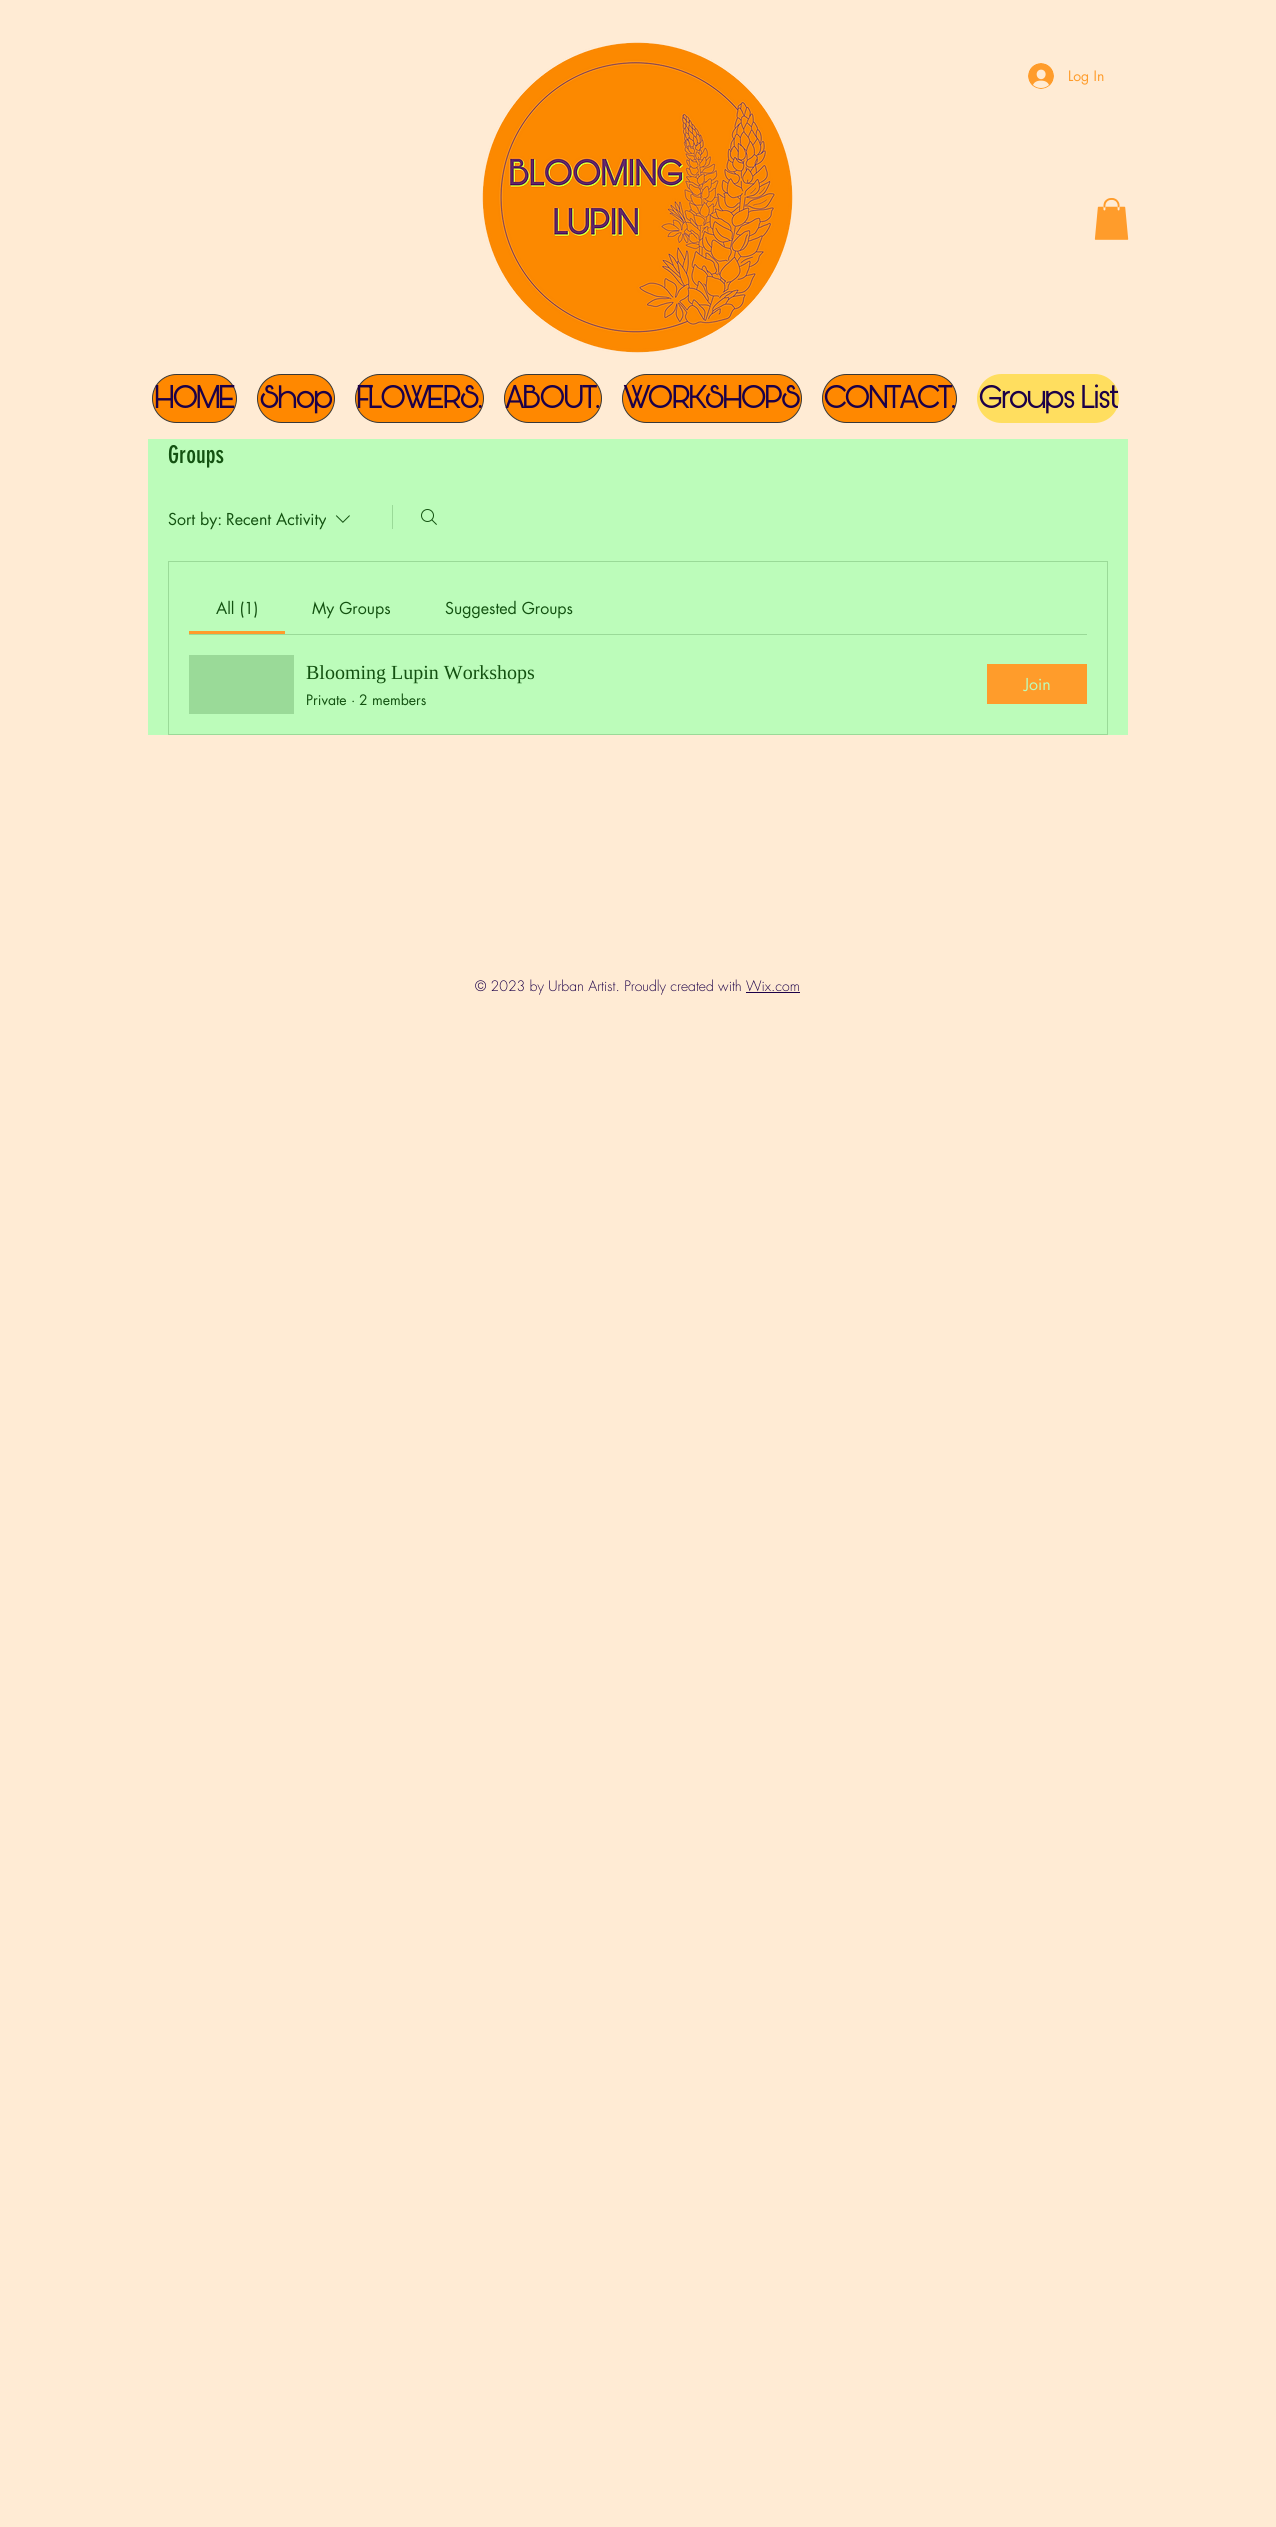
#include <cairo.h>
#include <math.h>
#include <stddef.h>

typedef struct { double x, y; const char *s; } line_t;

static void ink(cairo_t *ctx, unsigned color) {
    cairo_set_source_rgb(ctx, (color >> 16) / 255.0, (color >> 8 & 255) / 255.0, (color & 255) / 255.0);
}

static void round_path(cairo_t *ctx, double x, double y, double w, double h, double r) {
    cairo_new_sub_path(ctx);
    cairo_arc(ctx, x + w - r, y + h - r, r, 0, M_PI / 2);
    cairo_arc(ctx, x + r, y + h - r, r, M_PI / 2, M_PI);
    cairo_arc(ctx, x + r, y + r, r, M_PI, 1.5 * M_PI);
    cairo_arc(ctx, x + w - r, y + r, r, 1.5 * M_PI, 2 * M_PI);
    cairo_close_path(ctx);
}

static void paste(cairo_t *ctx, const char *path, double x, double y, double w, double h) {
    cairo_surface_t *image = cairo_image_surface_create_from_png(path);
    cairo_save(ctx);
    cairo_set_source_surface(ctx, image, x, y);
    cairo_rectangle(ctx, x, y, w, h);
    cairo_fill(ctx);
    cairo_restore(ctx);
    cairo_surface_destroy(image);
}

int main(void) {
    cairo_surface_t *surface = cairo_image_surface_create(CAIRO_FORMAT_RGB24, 1276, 2527);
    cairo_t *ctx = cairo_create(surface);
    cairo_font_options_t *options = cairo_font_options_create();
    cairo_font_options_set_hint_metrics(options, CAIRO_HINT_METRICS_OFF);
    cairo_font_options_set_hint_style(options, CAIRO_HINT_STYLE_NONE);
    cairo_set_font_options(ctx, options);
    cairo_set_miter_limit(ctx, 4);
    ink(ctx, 0xFFEBD4);
    cairo_paint(ctx);
    paste(ctx, "media/1.png", 482, 42, 311, 311);
    paste(ctx, "media/2.png", 1028, 63, 26, 26);
    cairo_select_font_face(ctx, "futura", CAIRO_FONT_SLANT_NORMAL, CAIRO_FONT_WEIGHT_NORMAL);
    cairo_set_font_size(ctx, 14);
    ink(ctx, 0xFF9C2B);
    cairo_move_to(ctx, 1068, 81);
    cairo_show_text(ctx, "Log In");
    paste(ctx, "media/3.png", 1094, 198, 35, 42);
    ink(ctx, 0xFF8800);
    round_path(ctx, 152.5, 374.5, 84, 48, 24);
    cairo_fill_preserve(ctx);
    ink(ctx, 0x383838);
    cairo_set_line_width(ctx, 1);
    cairo_stroke(ctx);
    cairo_select_font_face(ctx, "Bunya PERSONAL", CAIRO_FONT_SLANT_NORMAL, CAIRO_FONT_WEIGHT_BOLD);
    cairo_set_font_size(ctx, 33);
    ink(ctx, 0x1B0048);
    cairo_move_to(ctx, 155, 408);
    cairo_show_text(ctx, "HOME");
    ink(ctx, 0xFF8800);
    round_path(ctx, 257.5, 374.5, 77, 48, 24);
    cairo_fill_preserve(ctx);
    ink(ctx, 0x383838);
    cairo_stroke(ctx);
    ink(ctx, 0x1B0048);
    cairo_move_to(ctx, 260, 408);
    cairo_show_text(ctx, "Shop");
    ink(ctx, 0xFF8800);
    round_path(ctx, 355.5, 374.5, 128, 48, 24);
    cairo_fill_preserve(ctx);
    ink(ctx, 0x383838);
    cairo_stroke(ctx);
    ink(ctx, 0x1B0048);
    cairo_move_to(ctx, 357, 408);
    cairo_show_text(ctx, "FLOWERS.");
    ink(ctx, 0xFF8800);
    round_path(ctx, 504.5, 374.5, 97, 48, 24);
    cairo_fill_preserve(ctx);
    ink(ctx, 0x383838);
    cairo_stroke(ctx);
    ink(ctx, 0x1B0048);
    cairo_move_to(ctx, 506, 408);
    cairo_show_text(ctx, "ABOUT.");
    ink(ctx, 0xFF8800);
    round_path(ctx, 622.5, 374.5, 179, 48, 24);
    cairo_fill_preserve(ctx);
    ink(ctx, 0x383838);
    cairo_stroke(ctx);
    ink(ctx, 0x1B0048);
    cairo_move_to(ctx, 625, 408);
    cairo_show_text(ctx, "WORKSHOPS");
    ink(ctx, 0xFF8800);
    round_path(ctx, 822.5, 374.5, 134, 48, 24);
    cairo_fill_preserve(ctx);
    ink(ctx, 0x383838);
    cairo_stroke(ctx);
    ink(ctx, 0x1B0048);
    cairo_move_to(ctx, 824, 408);
    cairo_show_text(ctx, "CONTACT.");
    ink(ctx, 0xFFDE5F);
    round_path(ctx, 977, 374, 142, 49, 24.5);
    cairo_fill(ctx);
    ink(ctx, 0x1B0048);
    cairo_move_to(ctx, 979, 408);
    cairo_show_text(ctx, "Groups List");
    ink(ctx, 0xBCFCBA);
    cairo_rectangle(ctx, 148, 439, 980, 296);
    cairo_fill(ctx);
    cairo_select_font_face(ctx, "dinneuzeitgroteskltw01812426", CAIRO_FONT_SLANT_NORMAL, CAIRO_FONT_WEIGHT_NORMAL);
    cairo_set_font_size(ctx, 24);
    ink(ctx, 0x135211);
    cairo_move_to(ctx, 168, 463);
    cairo_show_text(ctx, "Groups");
    cairo_select_font_face(ctx, "futura", CAIRO_FONT_SLANT_NORMAL, CAIRO_FONT_WEIGHT_NORMAL);
    cairo_set_font_size(ctx, 16);
    cairo_move_to(ctx, 168, 525);
    cairo_show_text(ctx, "Sort by:");
    cairo_move_to(ctx, 226, 525);
    cairo_show_text(ctx, "Recent Activity");
    paste(ctx, "media/4.png", 335, 515, 15, 8);
    ink(ctx, 0x9ADA98);
    cairo_rectangle(ctx, 392, 505, 1, 24);
    cairo_fill(ctx);
    paste(ctx, "media/5.png", 421, 509, 16, 16);
    cairo_rectangle(ctx, 168.5, 561.5, 939, 173);
    cairo_stroke(ctx);
    cairo_rectangle(ctx, 189, 634, 898, 1);
    cairo_fill(ctx);
    ink(ctx, 0xFF9C2B);
    cairo_rectangle(ctx, 189, 631, 96, 3);
    cairo_fill(ctx);
    ink(ctx, 0x135211);
    {
        static const line_t items[] = {
            {216, 614, "All (1)"},
            {312, 614, "My Groups"},
            {445, 614, "Suggested Groups"},
        };
        for (size_t i = 0; i < sizeof items / sizeof *items; i++) {
            cairo_move_to(ctx, items[i].x, items[i].y);
            cairo_show_text(ctx, items[i].s);
        }
    }
    ink(ctx, 0x9ADA98);
    cairo_rectangle(ctx, 189, 655, 105, 59);
    cairo_fill(ctx);
    cairo_select_font_face(ctx, "Liberation Serif", CAIRO_FONT_SLANT_NORMAL, CAIRO_FONT_WEIGHT_NORMAL);
    cairo_set_font_size(ctx, 20);
    ink(ctx, 0x135211);
    cairo_move_to(ctx, 306, 679);
    cairo_show_text(ctx, "Blooming Lupin Workshops");
    cairo_select_font_face(ctx, "futura", CAIRO_FONT_SLANT_NORMAL, CAIRO_FONT_WEIGHT_NORMAL);
    cairo_set_font_size(ctx, 14);
    {
        static const line_t items[] = {
            {306, 705, "Private"},
            {351, 705, "·"},
            {359, 705, "2 members"},
        };
        for (size_t i = 0; i < sizeof items / sizeof *items; i++) {
            cairo_move_to(ctx, items[i].x, items[i].y);
            cairo_show_text(ctx, items[i].s);
        }
    }
    ink(ctx, 0xFF9C2B);
    cairo_rectangle(ctx, 987, 664, 100, 40);
    cairo_fill(ctx);
    cairo_set_font_size(ctx, 16);
    ink(ctx, 0xBCFCBA);
    cairo_move_to(ctx, 1024, 690);
    cairo_show_text(ctx, "Join");
    cairo_select_font_face(ctx, "futura Light", CAIRO_FONT_SLANT_NORMAL, CAIRO_FONT_WEIGHT_NORMAL);
    cairo_set_font_size(ctx, 14);
    ink(ctx, 0x1B0048);
    cairo_move_to(ctx, 475, 991);
    cairo_show_text(ctx, "© 2023 by Urban Artist. Proudly created with Wix.com");
    cairo_rectangle(ctx, 746, 992, 54, 1);
    cairo_fill(ctx);
    cairo_surface_write_to_png(surface, "image.png");
    cairo_font_options_destroy(options);
    cairo_destroy(ctx);
    cairo_surface_destroy(surface);
    return 0;
}
